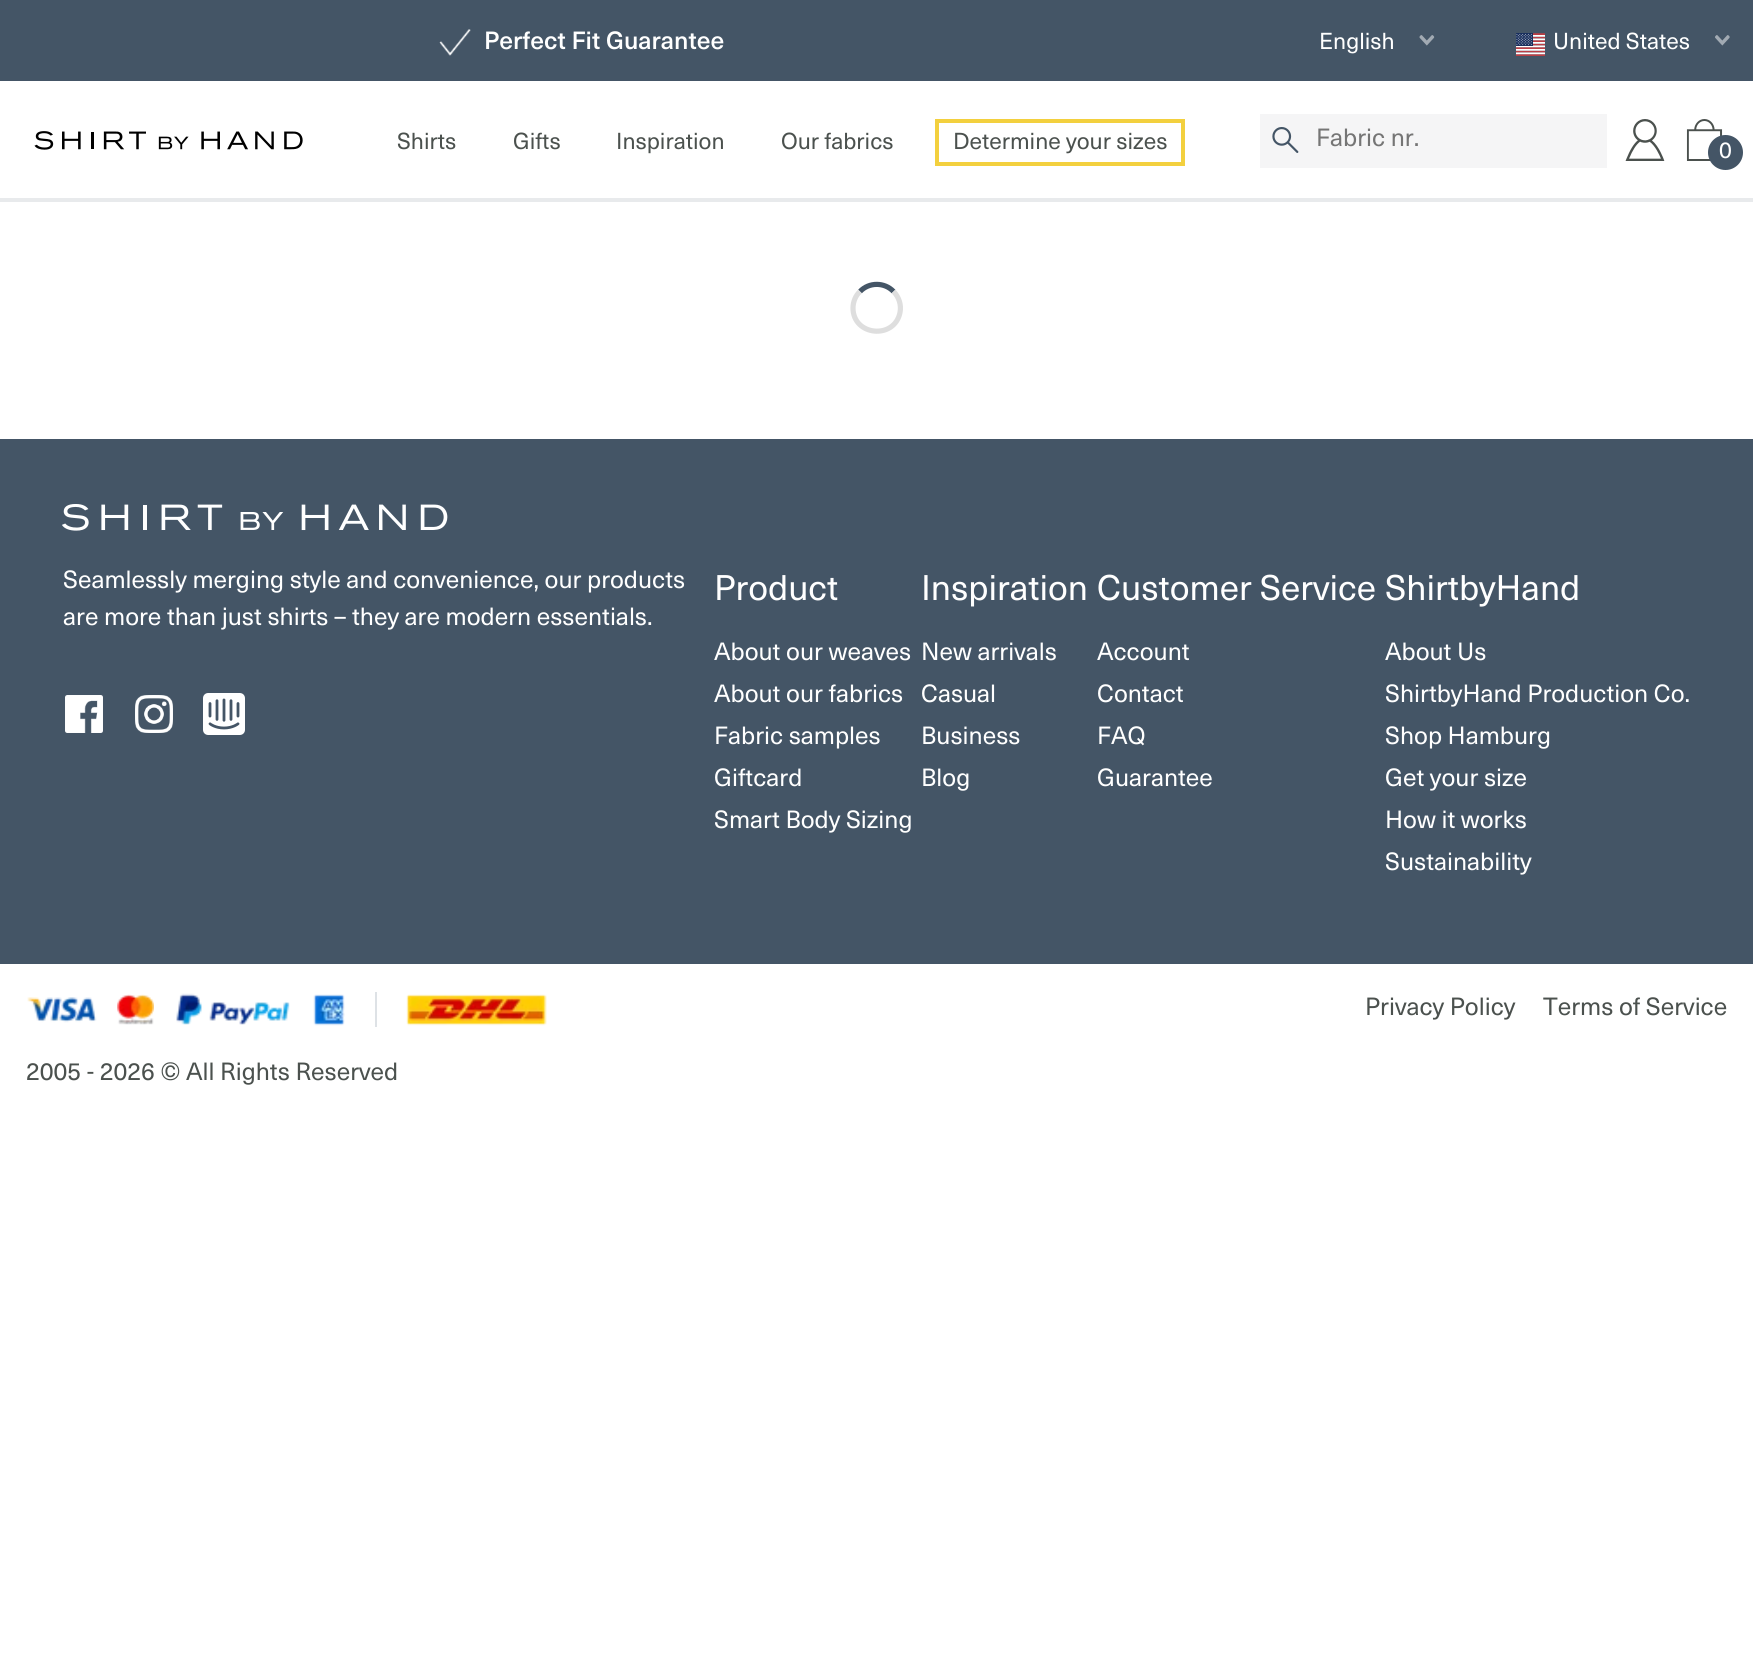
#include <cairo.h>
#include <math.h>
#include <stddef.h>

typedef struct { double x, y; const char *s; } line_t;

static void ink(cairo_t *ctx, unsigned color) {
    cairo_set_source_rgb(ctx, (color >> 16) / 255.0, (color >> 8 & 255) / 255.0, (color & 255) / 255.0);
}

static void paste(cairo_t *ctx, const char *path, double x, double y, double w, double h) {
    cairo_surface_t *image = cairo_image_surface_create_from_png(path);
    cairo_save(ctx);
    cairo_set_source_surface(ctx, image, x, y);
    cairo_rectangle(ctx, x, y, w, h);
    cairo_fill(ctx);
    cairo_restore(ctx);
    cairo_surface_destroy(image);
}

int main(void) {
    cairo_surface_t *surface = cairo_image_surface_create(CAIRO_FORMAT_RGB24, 1753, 1665);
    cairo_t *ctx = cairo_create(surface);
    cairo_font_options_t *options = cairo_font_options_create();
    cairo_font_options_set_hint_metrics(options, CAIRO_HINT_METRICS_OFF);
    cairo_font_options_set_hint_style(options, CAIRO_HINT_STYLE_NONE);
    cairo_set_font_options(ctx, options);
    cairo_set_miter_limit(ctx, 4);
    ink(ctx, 0xFFFFFF);
    cairo_paint(ctx);
    ink(ctx, 0x445566);
    cairo_rectangle(ctx, 0, 0, 1753, 81);
    cairo_fill(ctx);
    paste(ctx, "media/1.png", 439, 29, 32, 27);
    cairo_select_font_face(ctx, "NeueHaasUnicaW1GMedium", CAIRO_FONT_SLANT_NORMAL, CAIRO_FONT_WEIGHT_NORMAL);
    cairo_set_font_size(ctx, 24.5);
    ink(ctx, 0xFFFFFF);
    cairo_move_to(ctx, 484, 49);
    cairo_show_text(ctx, "Perfect Fit Guarantee");
    cairo_select_font_face(ctx, "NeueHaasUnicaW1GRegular", CAIRO_FONT_SLANT_NORMAL, CAIRO_FONT_WEIGHT_NORMAL);
    cairo_set_font_size(ctx, 22.75);
    cairo_move_to(ctx, 1319, 49);
    cairo_show_text(ctx, "English");
    paste(ctx, "media/2.png", 1419, 35, 16, 11);
    paste(ctx, "media/3.png", 1516, 33, 29, 23);
    cairo_move_to(ctx, 1553, 49);
    cairo_show_text(ctx, "United States");
    paste(ctx, "media/4.png", 1715, 35, 15, 11);
    ink(ctx, 0xE8EAEC);
    cairo_rectangle(ctx, 0, 198, 1753, 4);
    cairo_fill(ctx);
    paste(ctx, "media/5.png", 34, 131, 269, 19);
    ink(ctx, 0x4B514E);
    {
        static const line_t items[] = {
            {397, 149, "Shirts"},
            {513, 149, "Gifts"},
            {616, 149, "Inspiration"},
            {781, 149, "Our fabrics"},
        };
        for (size_t i = 0; i < sizeof items / sizeof *items; i++) {
            cairo_move_to(ctx, items[i].x, items[i].y);
            cairo_show_text(ctx, items[i].s);
        }
    }
    cairo_rectangle(ctx, 937, 121, 246, 43);
    ink(ctx, 0xF3D03E);
    cairo_set_line_width(ctx, 4);
    cairo_stroke(ctx);
    ink(ctx, 0x4B514E);
    cairo_move_to(ctx, 953, 149);
    cairo_show_text(ctx, "Determine your sizes");
    ink(ctx, 0xF5F5F6);
    cairo_rectangle(ctx, 1260, 114, 347, 54);
    cairo_fill(ctx);
    paste(ctx, "media/6.png", 1272, 127, 27, 26);
    cairo_set_font_size(ctx, 24.5);
    ink(ctx, 0x757575);
    cairo_move_to(ctx, 1316, 146);
    cairo_show_text(ctx, "Fabric nr.");
    paste(ctx, "media/7.png", 1625, 119, 40, 42);
    paste(ctx, "media/8.png", 1686, 119, 37, 42);
    ink(ctx, 0x445566);
    cairo_arc(ctx, 1725.5, 152.5, 17.5, 0, 2 * M_PI);
    cairo_fill(ctx);
    cairo_set_font_size(ctx, 22.75);
    ink(ctx, 0xFFFFFF);
    cairo_move_to(ctx, 1719, 158);
    cairo_show_text(ctx, "0");
    cairo_new_path(ctx);
    cairo_move_to(ctx, 860, 291.5);
    cairo_curve_to(ctx, 869, 282, 884.5, 282, 893.5, 291.5);
    ink(ctx, 0x445566);
    cairo_set_line_width(ctx, 5.2);
    cairo_stroke(ctx);
    cairo_new_path(ctx);
    cairo_move_to(ctx, 893.5, 291.5);
    cairo_curve_to(ctx, 899, 297, 901.5, 305, 900, 312.5);
    cairo_curve_to(ctx, 894.5, 340, 853, 336, 853, 308);
    cairo_curve_to(ctx, 853, 302, 855.5, 295.5, 860, 291.5);
    ink(ctx, 0xDEDEDE);
    cairo_stroke(ctx);
    ink(ctx, 0x445566);
    cairo_rectangle(ctx, 0, 439, 1753, 525);
    cairo_fill(ctx);
    paste(ctx, "media/9.png", 62, 504, 386, 27);
    cairo_set_font_size(ctx, 24.5);
    ink(ctx, 0xFFFFFF);
    cairo_move_to(ctx, 63, 588);
    cairo_show_text(ctx, "Seamlessly merging style and convenience, our products");
    cairo_move_to(ctx, 63, 625);
    cairo_show_text(ctx, "are more than just shirts – they are modern essentials.");
    paste(ctx, "media/10.png", 65, 695, 38, 38);
    paste(ctx, "media/11.png", 135, 695, 38, 38);
    paste(ctx, "media/12.png", 203, 693, 42, 42);
    cairo_set_font_size(ctx, 35);
    cairo_move_to(ctx, 714, 600);
    cairo_show_text(ctx, "Product");
    cairo_set_font_size(ctx, 24.5);
    {
        static const line_t items[] = {
            {714, 660, "About our weaves"},
            {714, 702, "About our fabrics"},
            {714, 744, "Fabric samples"},
            {714, 786, "Giftcard"},
            {714, 828, "Smart Body Sizing"},
        };
        for (size_t i = 0; i < sizeof items / sizeof *items; i++) {
            cairo_move_to(ctx, items[i].x, items[i].y);
            cairo_show_text(ctx, items[i].s);
        }
    }
    cairo_set_font_size(ctx, 35);
    cairo_move_to(ctx, 921, 600);
    cairo_show_text(ctx, "Inspiration");
    cairo_set_font_size(ctx, 24.5);
    {
        static const line_t items[] = {
            {921, 660, "New arrivals"},
            {921, 702, "Casual"},
            {921, 744, "Business"},
            {921, 786, "Blog"},
        };
        for (size_t i = 0; i < sizeof items / sizeof *items; i++) {
            cairo_move_to(ctx, items[i].x, items[i].y);
            cairo_show_text(ctx, items[i].s);
        }
    }
    cairo_set_font_size(ctx, 35);
    cairo_move_to(ctx, 1097, 600);
    cairo_show_text(ctx, "Customer Service");
    cairo_set_font_size(ctx, 24.5);
    {
        static const line_t items[] = {
            {1097, 660, "Account"},
            {1097, 702, "Contact"},
            {1097, 744, "FAQ"},
            {1097, 786, "Guarantee"},
        };
        for (size_t i = 0; i < sizeof items / sizeof *items; i++) {
            cairo_move_to(ctx, items[i].x, items[i].y);
            cairo_show_text(ctx, items[i].s);
        }
    }
    cairo_set_font_size(ctx, 35);
    cairo_move_to(ctx, 1385, 600);
    cairo_show_text(ctx, "ShirtbyHand");
    cairo_set_font_size(ctx, 24.5);
    {
        static const line_t items[] = {
            {1385, 660, "About Us"},
            {1385, 702, "ShirtbyHand Production Co."},
            {1385, 744, "Shop Hamburg"},
            {1385, 786, "Get your size"},
            {1385, 828, "How it works"},
            {1385, 870, "Sustainability"},
        };
        for (size_t i = 0; i < sizeof items / sizeof *items; i++) {
            cairo_move_to(ctx, items[i].x, items[i].y);
            cairo_show_text(ctx, items[i].s);
        }
    }
    paste(ctx, "media/13.png", 27, 997, 70, 26);
    paste(ctx, "media/14.png", 117, 994, 37, 31);
    paste(ctx, "media/15.png", 176, 993, 114, 32);
    paste(ctx, "media/16.png", 313, 994, 32, 32);
    ink(ctx, 0xDEE2E6);
    cairo_rectangle(ctx, 375, 992, 2, 35);
    cairo_fill(ctx);
    paste(ctx, "media/17.png", 406, 994, 141, 32);
    ink(ctx, 0x4B514E);
    {
        static const line_t items[] = {
            {1365, 1015, "Privacy Policy"},
            {1543, 1015, "Terms of Service"},
            {26, 1080, "2005 - 2026 © All Rights Reserved"},
        };
        for (size_t i = 0; i < sizeof items / sizeof *items; i++) {
            cairo_move_to(ctx, items[i].x, items[i].y);
            cairo_show_text(ctx, items[i].s);
        }
    }
    cairo_surface_write_to_png(surface, "image.png");
    cairo_font_options_destroy(options);
    cairo_destroy(ctx);
    cairo_surface_destroy(surface);
    return 0;
}
